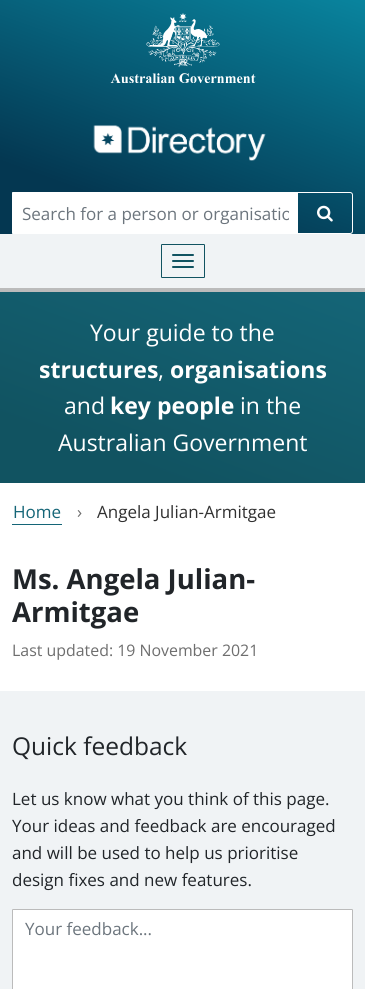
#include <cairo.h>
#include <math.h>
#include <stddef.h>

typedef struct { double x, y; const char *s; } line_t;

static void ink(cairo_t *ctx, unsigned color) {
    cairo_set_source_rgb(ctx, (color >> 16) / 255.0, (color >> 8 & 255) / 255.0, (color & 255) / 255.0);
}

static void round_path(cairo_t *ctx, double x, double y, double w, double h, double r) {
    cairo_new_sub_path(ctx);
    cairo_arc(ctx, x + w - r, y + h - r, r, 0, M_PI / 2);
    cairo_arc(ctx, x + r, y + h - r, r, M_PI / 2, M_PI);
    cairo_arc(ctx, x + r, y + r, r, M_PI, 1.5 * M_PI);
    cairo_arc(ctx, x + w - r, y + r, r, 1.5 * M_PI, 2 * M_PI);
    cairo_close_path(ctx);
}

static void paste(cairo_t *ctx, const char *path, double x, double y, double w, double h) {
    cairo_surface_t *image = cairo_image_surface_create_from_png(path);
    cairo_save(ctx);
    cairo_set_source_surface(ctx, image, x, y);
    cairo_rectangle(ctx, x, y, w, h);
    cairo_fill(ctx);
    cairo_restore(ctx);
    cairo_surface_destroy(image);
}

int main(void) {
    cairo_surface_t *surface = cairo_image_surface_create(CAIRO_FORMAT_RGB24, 365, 989);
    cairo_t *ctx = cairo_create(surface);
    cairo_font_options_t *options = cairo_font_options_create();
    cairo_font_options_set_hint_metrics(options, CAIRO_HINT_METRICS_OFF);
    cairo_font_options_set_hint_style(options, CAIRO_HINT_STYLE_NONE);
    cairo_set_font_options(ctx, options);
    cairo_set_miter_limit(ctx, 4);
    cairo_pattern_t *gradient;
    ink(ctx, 0xFFFFFF);
    cairo_paint(ctx);
    gradient = cairo_pattern_create_linear(241, -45, 124, 279);
    cairo_pattern_add_color_stop_rgba(gradient, 0, 0.035, 0.518, 0.62, 1);
    cairo_pattern_add_color_stop_rgba(gradient, 0.8, 0.016, 0.216, 0.318, 1);
    cairo_set_source(ctx, gradient);
    cairo_pattern_destroy(gradient);
    cairo_rectangle(ctx, 0, 0, 365, 234);
    cairo_fill(ctx);
    paste(ctx, "media/1.png", 110, 13, 146, 70);
    paste(ctx, "media/2.png", 93, 125, 173, 36);
    ink(ctx, 0xFFFFFF);
    cairo_new_path(ctx);
    cairo_move_to(ctx, 13, 192.5);
    cairo_line_to(ctx, 297.5, 192.5);
    cairo_line_to(ctx, 297.5, 233.5);
    cairo_line_to(ctx, 13, 233.5);
    cairo_curve_to(ctx, 12.5, 233.5, 12.5, 233.5, 12.5, 233);
    cairo_line_to(ctx, 12.5, 193);
    cairo_curve_to(ctx, 12.5, 192.5, 12.5, 192.5, 13, 192.5);
    cairo_close_path(ctx);
    cairo_fill_preserve(ctx);
    cairo_set_line_width(ctx, 1);
    cairo_stroke(ctx);
    cairo_save(ctx);
    cairo_rectangle(ctx, 22, 202, 267, 23);
    cairo_clip(ctx);
    cairo_select_font_face(ctx, "Open Sans", CAIRO_FONT_SLANT_NORMAL, CAIRO_FONT_WEIGHT_NORMAL);
    cairo_set_font_size(ctx, 17);
    ink(ctx, 0x6C757D);
    cairo_move_to(ctx, 22, 220);
    cairo_show_text(ctx, "Search for a person or organisatio");
    cairo_restore(ctx);
    cairo_new_path(ctx);
    cairo_move_to(ctx, 297.5, 192.5);
    cairo_line_to(ctx, 350, 192.5);
    cairo_curve_to(ctx, 351.5, 192.5, 352.5, 193.5, 352.5, 195);
    cairo_line_to(ctx, 352.5, 231);
    cairo_curve_to(ctx, 352.5, 232.5, 351.5, 233.5, 350, 233.5);
    cairo_line_to(ctx, 297.5, 233.5);
    cairo_close_path(ctx);
    cairo_stroke(ctx);
    paste(ctx, "media/3.png", 317, 205, 16, 17);
    ink(ctx, 0xF0F3F5);
    cairo_rectangle(ctx, 0, 234, 365, 54);
    cairo_fill(ctx);
    ink(ctx, 0xBBBBBB);
    cairo_rectangle(ctx, 0, 288, 365, 4);
    cairo_fill(ctx);
    round_path(ctx, 161.5, 244.5, 43, 33, 0.5);
    ink(ctx, 0x115361);
    cairo_stroke(ctx);
    round_path(ctx, 172, 254, 22, 2, 1);
    cairo_fill(ctx);
    round_path(ctx, 172, 260, 22, 2, 1);
    cairo_fill(ctx);
    round_path(ctx, 172, 266, 22, 2, 1);
    cairo_fill(ctx);
    gradient = cairo_pattern_create_linear(235, 245, 130, 530);
    cairo_pattern_add_color_stop_rgba(gradient, 0, 0.078, 0.396, 0.467, 1);
    cairo_pattern_add_color_stop_rgba(gradient, 0.8, 0.067, 0.325, 0.38, 1);
    cairo_set_source(ctx, gradient);
    cairo_pattern_destroy(gradient);
    cairo_rectangle(ctx, 0, 292, 365, 191);
    cairo_fill(ctx);
    cairo_select_font_face(ctx, "Open Sans", CAIRO_FONT_SLANT_NORMAL, CAIRO_FONT_WEIGHT_NORMAL);
    cairo_set_font_size(ctx, 23);
    ink(ctx, 0xFFFFFF);
    cairo_move_to(ctx, 90, 341);
    cairo_show_text(ctx, "Your guide to the");
    cairo_select_font_face(ctx, "Open Sans", CAIRO_FONT_SLANT_NORMAL, CAIRO_FONT_WEIGHT_BOLD);
    cairo_move_to(ctx, 39, 378);
    cairo_show_text(ctx, "structures");
    cairo_select_font_face(ctx, "Open Sans", CAIRO_FONT_SLANT_NORMAL, CAIRO_FONT_WEIGHT_NORMAL);
    cairo_move_to(ctx, 158, 378);
    cairo_show_text(ctx, ",");
    cairo_select_font_face(ctx, "Open Sans", CAIRO_FONT_SLANT_NORMAL, CAIRO_FONT_WEIGHT_BOLD);
    cairo_move_to(ctx, 170, 378);
    cairo_show_text(ctx, "organisations");
    cairo_select_font_face(ctx, "Open Sans", CAIRO_FONT_SLANT_NORMAL, CAIRO_FONT_WEIGHT_NORMAL);
    cairo_move_to(ctx, 64, 414);
    cairo_show_text(ctx, "and");
    cairo_select_font_face(ctx, "Open Sans", CAIRO_FONT_SLANT_NORMAL, CAIRO_FONT_WEIGHT_BOLD);
    cairo_move_to(ctx, 110, 414);
    cairo_show_text(ctx, "key people");
    cairo_select_font_face(ctx, "Open Sans", CAIRO_FONT_SLANT_NORMAL, CAIRO_FONT_WEIGHT_NORMAL);
    cairo_move_to(ctx, 240, 414);
    cairo_show_text(ctx, "in the");
    cairo_move_to(ctx, 58, 451);
    cairo_show_text(ctx, "Australian Government");
    cairo_set_font_size(ctx, 17);
    ink(ctx, 0x146577);
    cairo_move_to(ctx, 13, 518);
    cairo_show_text(ctx, "Home");
    cairo_rectangle(ctx, 12, 524, 50, 1);
    cairo_fill(ctx);
    ink(ctx, 0x6E6E6E);
    cairo_move_to(ctx, 77, 518);
    cairo_show_text(ctx, "›");
    ink(ctx, 0x313131);
    cairo_move_to(ctx, 97, 518);
    cairo_show_text(ctx, "Angela Julian-Armitgae");
    cairo_select_font_face(ctx, "Open Sans", CAIRO_FONT_SLANT_NORMAL, CAIRO_FONT_WEIGHT_BOLD);
    cairo_set_font_size(ctx, 27.5);
    ink(ctx, 0x212529);
    cairo_move_to(ctx, 12, 589);
    cairo_show_text(ctx, "Ms. Angela Julian-");
    cairo_move_to(ctx, 12, 622);
    cairo_show_text(ctx, "Armitgae");
    cairo_select_font_face(ctx, "Open Sans", CAIRO_FONT_SLANT_NORMAL, CAIRO_FONT_WEIGHT_NORMAL);
    cairo_set_font_size(ctx, 15.9);
    ink(ctx, 0x6E6E6E);
    cairo_move_to(ctx, 12, 656);
    cairo_show_text(ctx, "Last updated: 19 November 2021");
    ink(ctx, 0xF0F3F5);
    cairo_rectangle(ctx, 0, 691, 365, 298);
    cairo_fill(ctx);
    cairo_set_font_size(ctx, 24.5);
    ink(ctx, 0x212529);
    cairo_move_to(ctx, 12, 755);
    cairo_show_text(ctx, "Quick feedback");
    cairo_set_font_size(ctx, 17);
    {
        static const line_t items[] = {
            {12, 805, "Let us know what you think of this page."},
            {12, 832, "Your ideas and feedback are encouraged"},
            {12, 859, "and will be used to help us prioritise"},
            {12, 886, "design fixes and new features."},
        };
        for (size_t i = 0; i < sizeof items / sizeof *items; i++) {
            cairo_move_to(ctx, items[i].x, items[i].y);
            cairo_show_text(ctx, items[i].s);
        }
    }
    ink(ctx, 0xFFFFFF);
    cairo_rectangle(ctx, 13, 910, 339, 79);
    cairo_fill(ctx);
    round_path(ctx, 12.5, 909.5, 340, 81, 0.5);
    ink(ctx, 0xBBBBBB);
    cairo_stroke(ctx);
    ink(ctx, 0x6C757D);
    cairo_move_to(ctx, 25, 935);
    cairo_show_text(ctx, "Your feedback...");
    cairo_surface_write_to_png(surface, "image.png");
    cairo_font_options_destroy(options);
    cairo_destroy(ctx);
    cairo_surface_destroy(surface);
    return 0;
}
